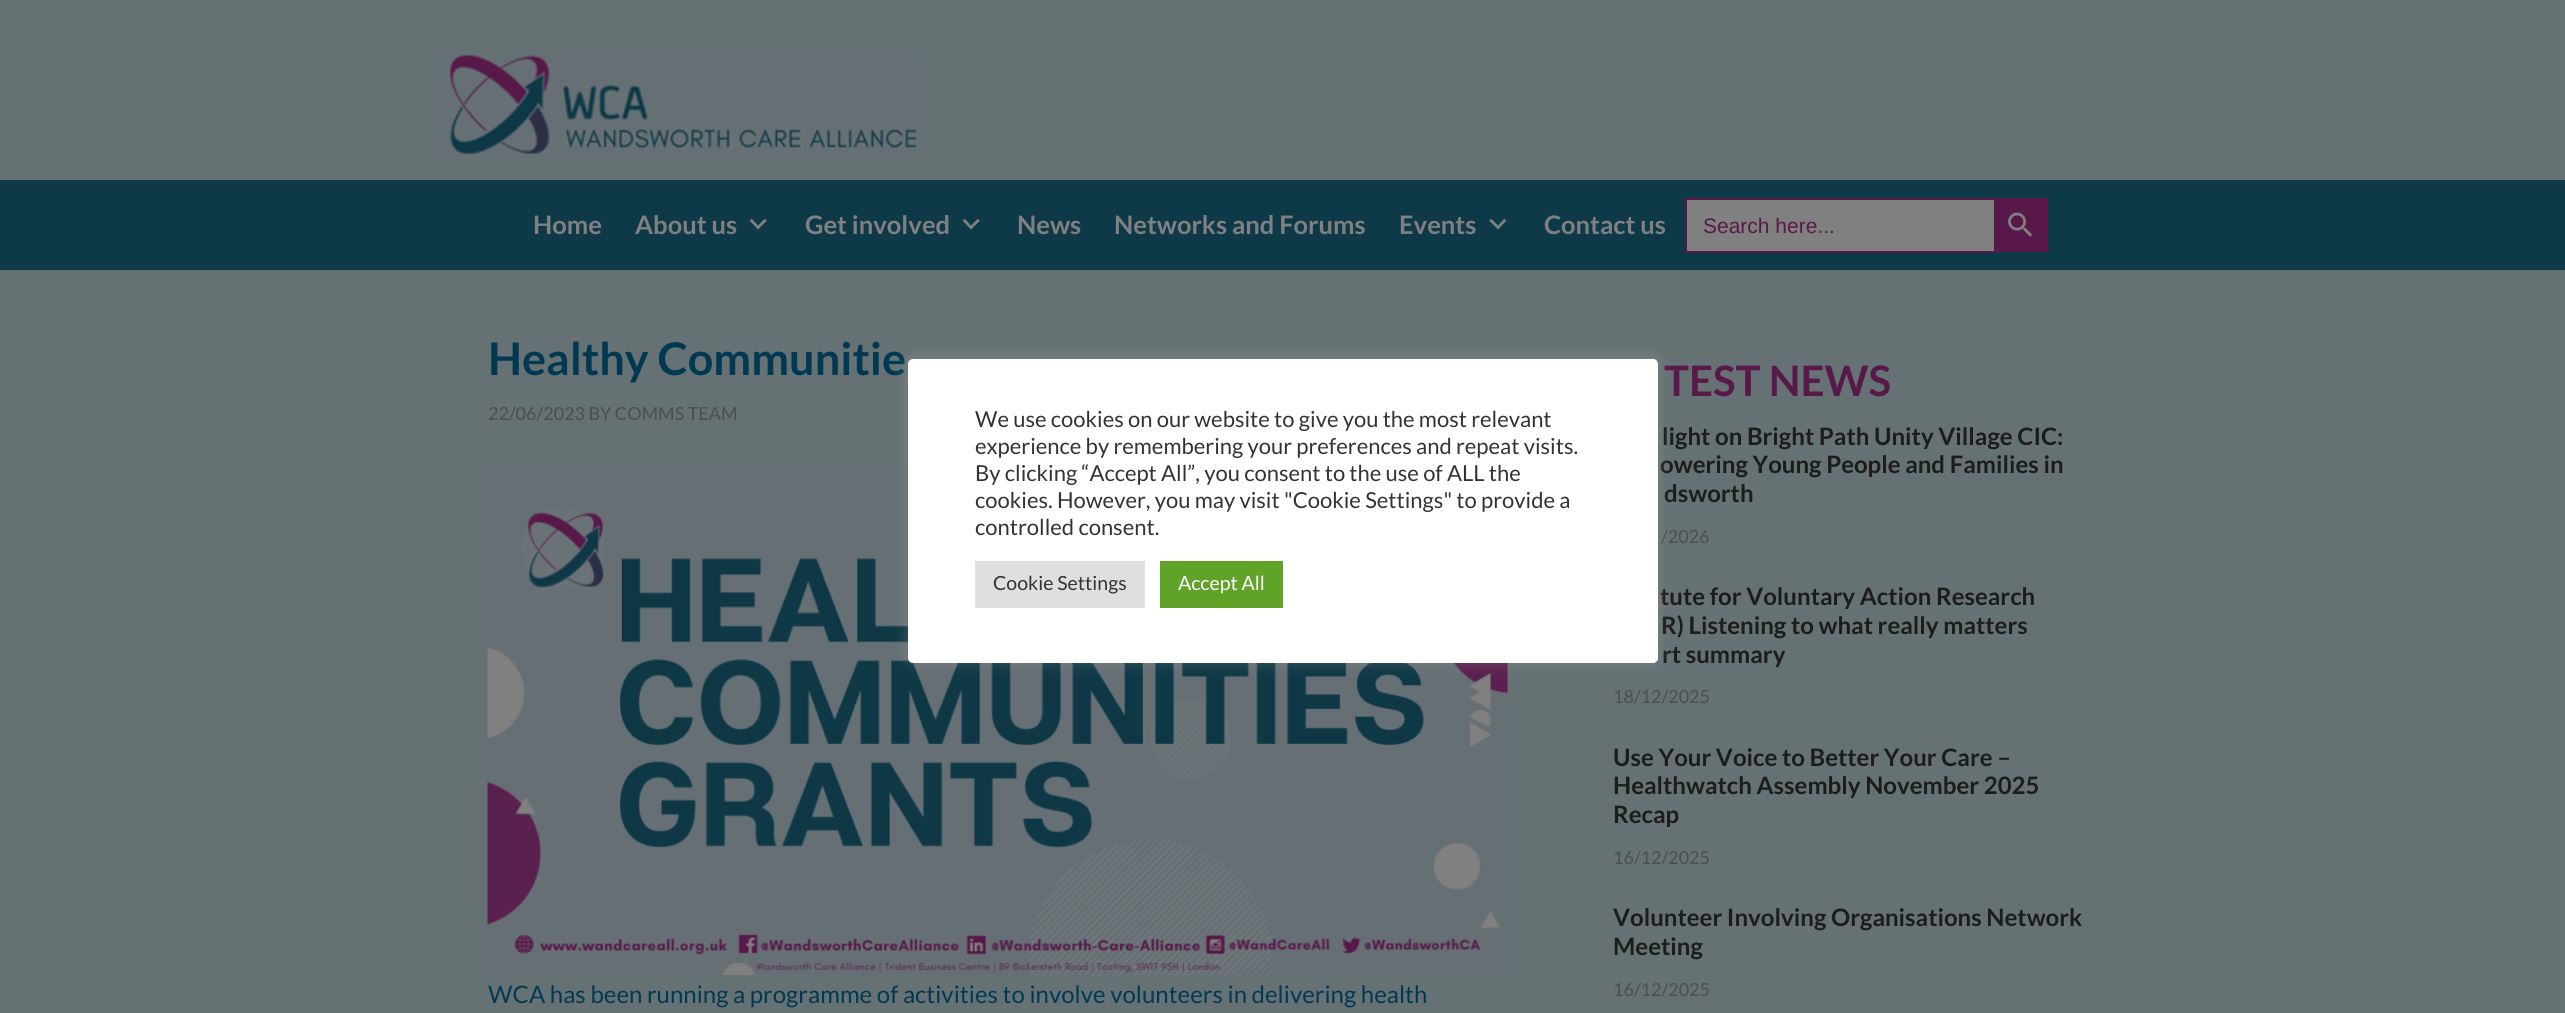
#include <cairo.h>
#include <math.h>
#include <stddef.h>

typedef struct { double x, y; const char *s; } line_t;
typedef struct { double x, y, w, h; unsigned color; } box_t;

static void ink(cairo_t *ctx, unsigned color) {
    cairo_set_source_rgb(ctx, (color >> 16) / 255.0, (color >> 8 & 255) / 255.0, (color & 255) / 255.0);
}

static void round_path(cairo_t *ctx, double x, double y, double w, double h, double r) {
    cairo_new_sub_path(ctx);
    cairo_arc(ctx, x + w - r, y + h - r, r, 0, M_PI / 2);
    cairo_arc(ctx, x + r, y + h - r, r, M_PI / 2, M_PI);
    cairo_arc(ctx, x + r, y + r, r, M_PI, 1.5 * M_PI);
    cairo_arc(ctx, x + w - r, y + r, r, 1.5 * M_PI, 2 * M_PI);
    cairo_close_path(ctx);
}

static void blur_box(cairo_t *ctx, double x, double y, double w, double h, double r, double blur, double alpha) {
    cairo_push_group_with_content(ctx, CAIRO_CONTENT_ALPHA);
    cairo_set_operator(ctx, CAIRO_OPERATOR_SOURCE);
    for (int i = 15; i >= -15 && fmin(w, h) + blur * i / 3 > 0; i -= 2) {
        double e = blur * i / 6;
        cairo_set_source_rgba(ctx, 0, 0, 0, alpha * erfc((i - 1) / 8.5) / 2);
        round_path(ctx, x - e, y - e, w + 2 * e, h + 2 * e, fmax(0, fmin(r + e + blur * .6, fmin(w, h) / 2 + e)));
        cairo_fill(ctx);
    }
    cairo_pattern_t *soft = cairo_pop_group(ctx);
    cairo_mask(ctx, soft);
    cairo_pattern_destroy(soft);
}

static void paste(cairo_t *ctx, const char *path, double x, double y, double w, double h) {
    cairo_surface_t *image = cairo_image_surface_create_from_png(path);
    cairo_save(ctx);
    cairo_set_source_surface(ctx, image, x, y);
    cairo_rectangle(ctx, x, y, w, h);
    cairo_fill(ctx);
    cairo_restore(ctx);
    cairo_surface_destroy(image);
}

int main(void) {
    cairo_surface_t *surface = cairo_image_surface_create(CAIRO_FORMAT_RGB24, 2565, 1013);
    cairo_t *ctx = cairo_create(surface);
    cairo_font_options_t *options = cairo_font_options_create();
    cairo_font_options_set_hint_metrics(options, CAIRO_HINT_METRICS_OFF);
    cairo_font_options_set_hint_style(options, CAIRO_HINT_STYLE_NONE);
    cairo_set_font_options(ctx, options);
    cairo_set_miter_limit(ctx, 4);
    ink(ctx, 0x667174);
    cairo_paint(ctx);
    paste(ctx, "media/1.png", 443, 54, 477, 105);
    ink(ctx, 0x0E3948);
    cairo_rectangle(ctx, 0, 180, 2565, 90);
    cairo_fill(ctx);
    cairo_select_font_face(ctx, "Lato", CAIRO_FONT_SLANT_NORMAL, CAIRO_FONT_WEIGHT_BOLD);
    cairo_set_font_size(ctx, 25.5);
    ink(ctx, 0x808080);
    cairo_move_to(ctx, 533, 234);
    cairo_show_text(ctx, "Home");
    cairo_move_to(ctx, 635, 234);
    cairo_show_text(ctx, "About us");
    cairo_new_path(ctx);
    cairo_move_to(ctx, 752, 219);
    cairo_line_to(ctx, 758, 225.5);
    cairo_line_to(ctx, 764.5, 219);
    cairo_line_to(ctx, 767, 220.5);
    cairo_line_to(ctx, 758, 229.5);
    cairo_line_to(ctx, 749.5, 220.5);
    cairo_close_path(ctx);
    cairo_fill(ctx);
    cairo_move_to(ctx, 805, 234);
    cairo_show_text(ctx, "Get involved");
    cairo_new_path(ctx);
    cairo_move_to(ctx, 965, 219);
    cairo_line_to(ctx, 971, 225.5);
    cairo_line_to(ctx, 977.5, 219);
    cairo_line_to(ctx, 980, 220.5);
    cairo_line_to(ctx, 971, 229.5);
    cairo_line_to(ctx, 962.5, 220.5);
    cairo_close_path(ctx);
    cairo_fill(ctx);
    {
        static const line_t items[] = {
            {1017, 234, "News"},
            {1114, 234, "Networks and Forums"},
            {1399, 234, "Events"},
        };
        for (size_t i = 0; i < sizeof items / sizeof *items; i++) {
            cairo_move_to(ctx, items[i].x, items[i].y);
            cairo_show_text(ctx, items[i].s);
        }
    }
    cairo_new_path(ctx);
    cairo_move_to(ctx, 1491.5, 219);
    cairo_line_to(ctx, 1498, 225.5);
    cairo_line_to(ctx, 1504, 219);
    cairo_line_to(ctx, 1506.5, 220.5);
    cairo_line_to(ctx, 1498, 229.5);
    cairo_line_to(ctx, 1489, 220.5);
    cairo_close_path(ctx);
    cairo_fill(ctx);
    cairo_move_to(ctx, 1544, 234);
    cairo_show_text(ctx, "Contact us");
    {
        static const box_t items[] = {
            {1687, 200, 307, 51, 0x808080},
            {1685, 198, 309, 2, 0x58194A},
            {1685, 251, 309, 2, 0x58194A},
            {1685, 198, 2, 54, 0x58194A},
        };
        for (size_t i = 0; i < sizeof items / sizeof *items; i++) {
            ink(ctx, items[i].color);
            cairo_rectangle(ctx, items[i].x, items[i].y, items[i].w, items[i].h);
            cairo_fill(ctx);
        }
    }
    cairo_select_font_face(ctx, "Liberation Sans", CAIRO_FONT_SLANT_NORMAL, CAIRO_FONT_WEIGHT_NORMAL);
    cairo_set_font_size(ctx, 21);
    cairo_move_to(ctx, 1703, 233);
    cairo_show_text(ctx, "Search here...");
    cairo_rectangle(ctx, 1994, 198, 54, 54);
    cairo_fill(ctx);
    paste(ctx, "media/2.png", 2008, 212, 25, 25);
    cairo_select_font_face(ctx, "Lato", CAIRO_FONT_SLANT_NORMAL, CAIRO_FONT_WEIGHT_BOLD);
    cairo_set_font_size(ctx, 45);
    ink(ctx, 0x003951);
    cairo_move_to(ctx, 488, 375);
    cairo_show_text(ctx, "Healthy Communitie");
    cairo_select_font_face(ctx, "Lato", CAIRO_FONT_SLANT_NORMAL, CAIRO_FONT_WEIGHT_NORMAL);
    cairo_set_font_size(ctx, 18);
    ink(ctx, 0x4D4D4D);
    cairo_move_to(ctx, 488, 420);
    cairo_show_text(ctx, "22/06/2023 BY COMMS TEAM");
    paste(ctx, "media/3.png", 487, 465, 1021, 510);
    cairo_set_font_size(ctx, 24);
    ink(ctx, 0x003951);
    cairo_move_to(ctx, 488, 1003);
    cairo_show_text(ctx, "WCA has been running a programme of activities to involve volunteers in delivering health");
    cairo_select_font_face(ctx, "Lato", CAIRO_FONT_SLANT_NORMAL, CAIRO_FONT_WEIGHT_BOLD);
    cairo_set_font_size(ctx, 42);
    ink(ctx, 0x58194A);
    cairo_move_to(ctx, 1664, 396);
    cairo_show_text(ctx, "TEST NEWS");
    cairo_set_font_size(ctx, 24);
    ink(ctx, 0x1C1C1C);
    {
        static const line_t items[] = {
            {1662, 445, "light on Bright Path Unity Village CIC:"},
            {1660, 473, "owering Young People and Families in"},
            {1664, 502, "dsworth"},
        };
        for (size_t i = 0; i < sizeof items / sizeof *items; i++) {
            cairo_move_to(ctx, items[i].x, items[i].y);
            cairo_show_text(ctx, items[i].s);
        }
    }
    cairo_select_font_face(ctx, "Lato", CAIRO_FONT_SLANT_NORMAL, CAIRO_FONT_WEIGHT_NORMAL);
    cairo_set_font_size(ctx, 18);
    ink(ctx, 0x4D4D4D);
    cairo_move_to(ctx, 1661, 543);
    cairo_show_text(ctx, "/2026");
    cairo_select_font_face(ctx, "Lato", CAIRO_FONT_SLANT_NORMAL, CAIRO_FONT_WEIGHT_BOLD);
    cairo_set_font_size(ctx, 24);
    ink(ctx, 0x1C1C1C);
    {
        static const line_t items[] = {
            {1660, 605, "tute for Voluntary Action Research"},
            {1661, 634, "R) Listening to what really matters"},
            {1662, 663, "rt summary"},
        };
        for (size_t i = 0; i < sizeof items / sizeof *items; i++) {
            cairo_move_to(ctx, items[i].x, items[i].y);
            cairo_show_text(ctx, items[i].s);
        }
    }
    cairo_select_font_face(ctx, "Lato", CAIRO_FONT_SLANT_NORMAL, CAIRO_FONT_WEIGHT_NORMAL);
    cairo_set_font_size(ctx, 18);
    ink(ctx, 0x4D4D4D);
    cairo_move_to(ctx, 1613, 703);
    cairo_show_text(ctx, "18/12/2025");
    cairo_select_font_face(ctx, "Lato", CAIRO_FONT_SLANT_NORMAL, CAIRO_FONT_WEIGHT_BOLD);
    cairo_set_font_size(ctx, 24);
    ink(ctx, 0x1C1C1C);
    {
        static const line_t items[] = {
            {1613, 766, "Use Your Voice to Better Your Care –"},
            {1613, 794, "Healthwatch Assembly November 2025"},
            {1613, 823, "Recap"},
        };
        for (size_t i = 0; i < sizeof items / sizeof *items; i++) {
            cairo_move_to(ctx, items[i].x, items[i].y);
            cairo_show_text(ctx, items[i].s);
        }
    }
    cairo_select_font_face(ctx, "Lato", CAIRO_FONT_SLANT_NORMAL, CAIRO_FONT_WEIGHT_NORMAL);
    cairo_set_font_size(ctx, 18);
    ink(ctx, 0x4D4D4D);
    cairo_move_to(ctx, 1613, 864);
    cairo_show_text(ctx, "16/12/2025");
    cairo_select_font_face(ctx, "Lato", CAIRO_FONT_SLANT_NORMAL, CAIRO_FONT_WEIGHT_BOLD);
    cairo_set_font_size(ctx, 24);
    ink(ctx, 0x1C1C1C);
    cairo_move_to(ctx, 1613, 926);
    cairo_show_text(ctx, "Volunteer Involving Organisations Network");
    cairo_move_to(ctx, 1613, 955);
    cairo_show_text(ctx, "Meeting");
    cairo_select_font_face(ctx, "Lato", CAIRO_FONT_SLANT_NORMAL, CAIRO_FONT_WEIGHT_NORMAL);
    cairo_set_font_size(ctx, 18);
    ink(ctx, 0x4D4D4D);
    cairo_move_to(ctx, 1613, 996);
    cairo_show_text(ctx, "16/12/2025");
    ink(ctx, 0xACABAB);
    blur_box(ctx, 908, 357, 750, 305, 5, 7.5, 0.3);
    ink(ctx, 0xFFFFFF);
    round_path(ctx, 908, 359, 750, 304, 5);
    cairo_fill(ctx);
    cairo_set_font_size(ctx, 22);
    ink(ctx, 0x333333);
    {
        static const line_t items[] = {
            {975, 427, "We use cookies on our website to give you the most relevant"},
            {975, 454, "experience by remembering your preferences and repeat visits."},
            {975, 481, "By clicking “Accept All”, you consent to the use of ALL the"},
            {975, 508, "cookies. However, you may visit \"Cookie Settings\" to provide a"},
            {975, 535, "controlled consent."},
        };
        for (size_t i = 0; i < sizeof items / sizeof *items; i++) {
            cairo_move_to(ctx, items[i].x, items[i].y);
            cairo_show_text(ctx, items[i].s);
        }
    }
    ink(ctx, 0xDEDFE0);
    cairo_rectangle(ctx, 975, 561, 170, 47);
    cairo_fill(ctx);
    cairo_set_font_size(ctx, 19.5);
    ink(ctx, 0x333333);
    cairo_move_to(ctx, 993, 590);
    cairo_show_text(ctx, "Cookie Settings");
    ink(ctx, 0x61A229);
    cairo_rectangle(ctx, 1160, 561, 123, 47);
    cairo_fill(ctx);
    ink(ctx, 0xFFFFFF);
    cairo_move_to(ctx, 1178, 590);
    cairo_show_text(ctx, "Accept All");
    cairo_surface_write_to_png(surface, "image.png");
    cairo_font_options_destroy(options);
    cairo_destroy(ctx);
    cairo_surface_destroy(surface);
    return 0;
}
